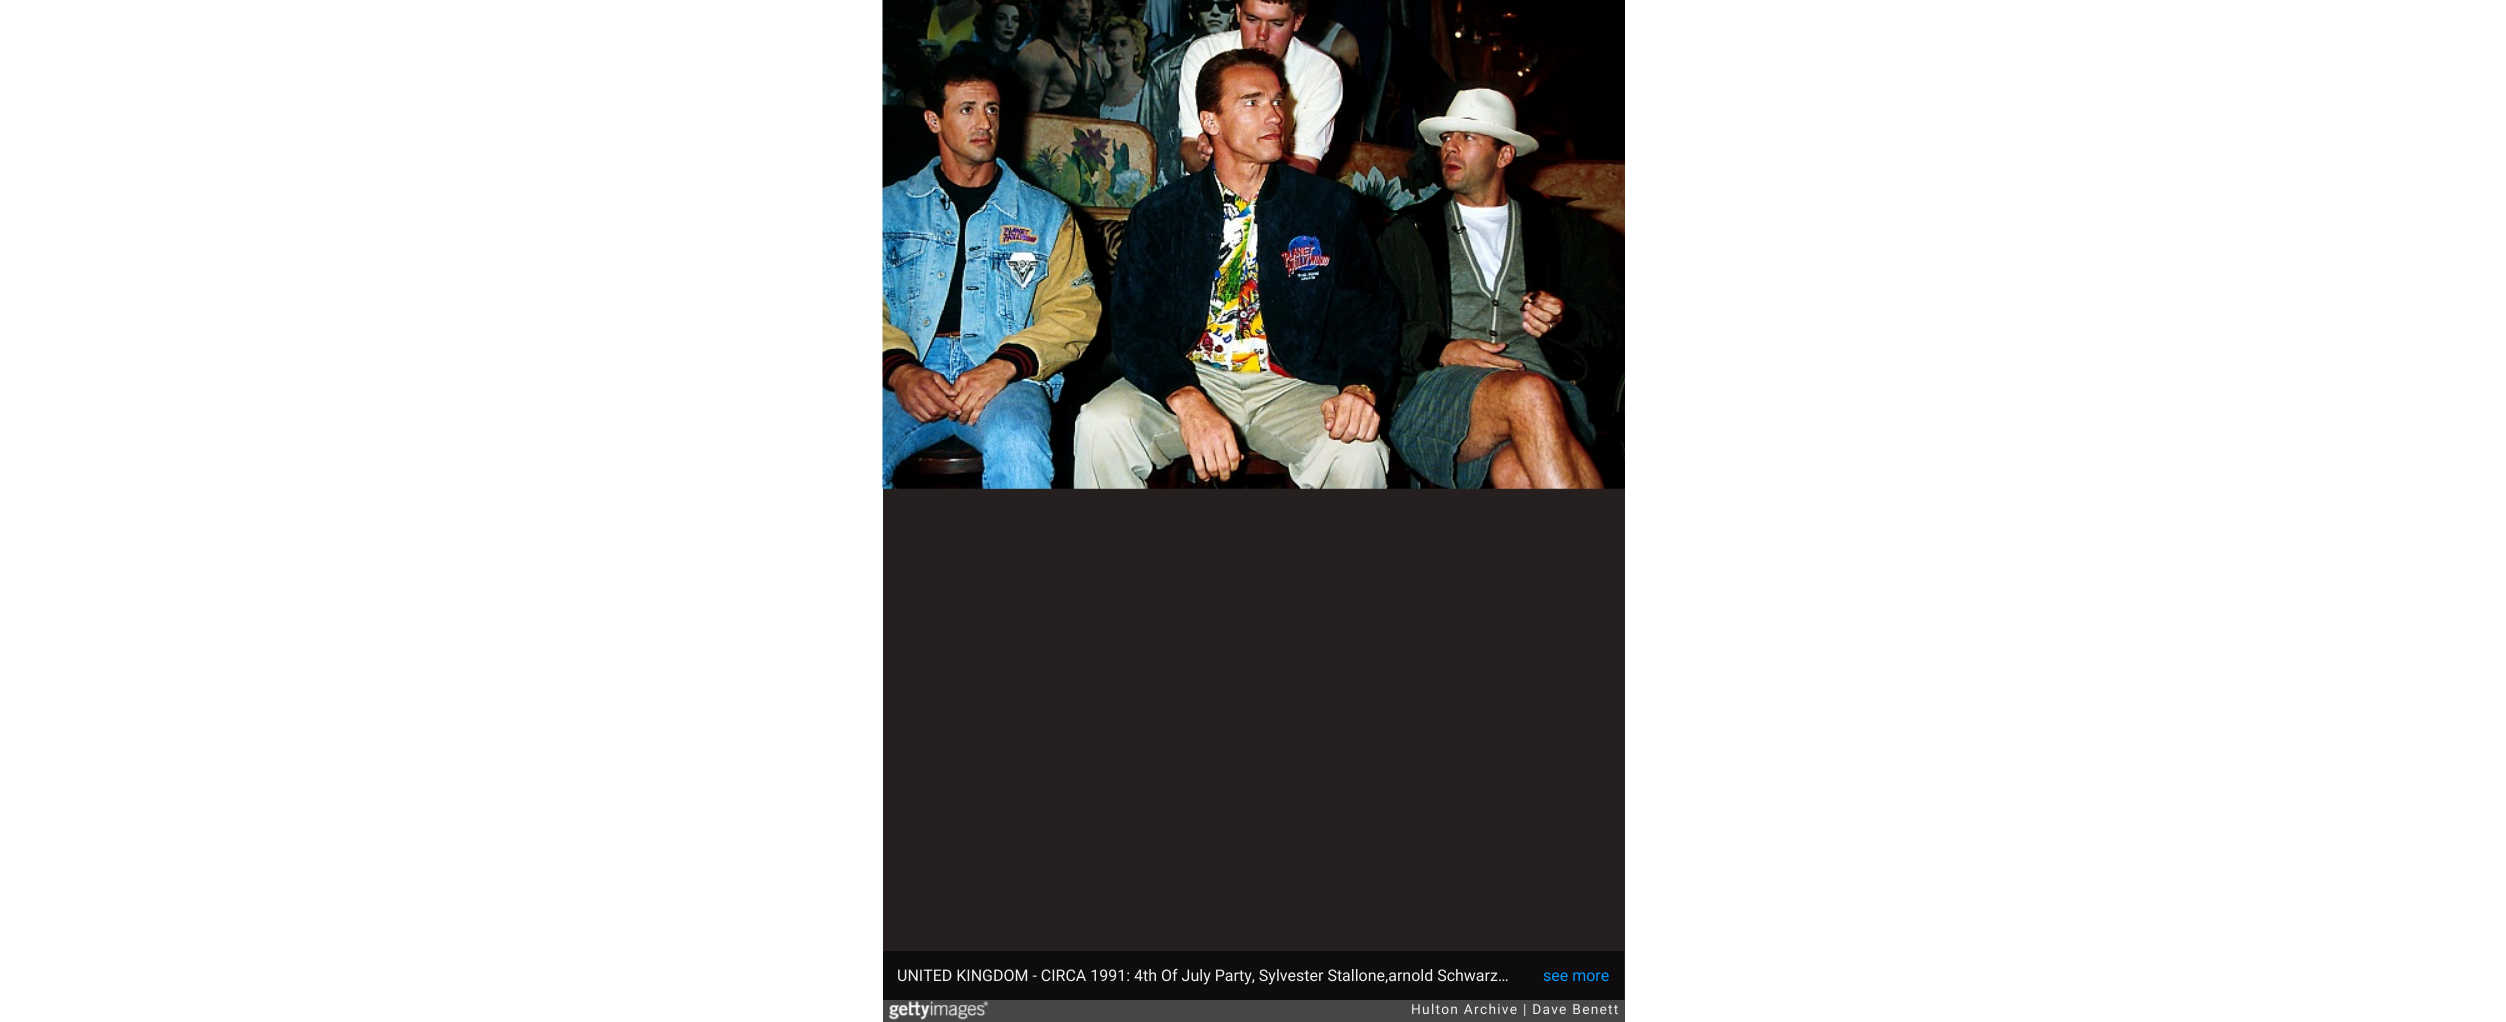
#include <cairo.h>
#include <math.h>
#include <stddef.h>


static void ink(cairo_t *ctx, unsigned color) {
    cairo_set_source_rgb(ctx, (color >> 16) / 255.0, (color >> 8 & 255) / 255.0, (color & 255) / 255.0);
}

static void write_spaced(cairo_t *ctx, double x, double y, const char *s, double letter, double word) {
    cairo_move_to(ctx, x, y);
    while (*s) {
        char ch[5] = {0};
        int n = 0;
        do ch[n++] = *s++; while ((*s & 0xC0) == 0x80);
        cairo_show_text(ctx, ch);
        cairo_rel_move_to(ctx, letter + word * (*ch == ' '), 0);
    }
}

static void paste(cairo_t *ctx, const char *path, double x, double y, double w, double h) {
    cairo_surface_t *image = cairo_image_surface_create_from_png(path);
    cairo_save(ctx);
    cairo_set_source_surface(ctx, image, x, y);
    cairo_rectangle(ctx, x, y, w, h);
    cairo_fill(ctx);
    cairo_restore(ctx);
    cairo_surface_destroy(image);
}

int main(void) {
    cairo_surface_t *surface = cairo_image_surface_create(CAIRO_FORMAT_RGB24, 2506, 1022);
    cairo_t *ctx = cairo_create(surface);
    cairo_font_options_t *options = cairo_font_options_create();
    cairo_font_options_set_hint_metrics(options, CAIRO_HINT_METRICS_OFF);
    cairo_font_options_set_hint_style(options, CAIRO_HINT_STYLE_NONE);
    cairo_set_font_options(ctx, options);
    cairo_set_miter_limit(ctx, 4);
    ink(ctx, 0xFFFFFF);
    cairo_paint(ctx);
    ink(ctx, 0x251F20);
    cairo_rectangle(ctx, 883, 488, 742, 512);
    cairo_fill(ctx);
    paste(ctx, "media/1.png", 882, 0, 743, 489);
    ink(ctx, 0x0F0C0D);
    cairo_rectangle(ctx, 883, 951, 741, 49);
    cairo_fill(ctx);
    cairo_select_font_face(ctx, "Roboto", CAIRO_FONT_SLANT_NORMAL, CAIRO_FONT_WEIGHT_NORMAL);
    cairo_set_font_size(ctx, 16);
    ink(ctx, 0xEEEEEE);
    cairo_move_to(ctx, 897, 981);
    cairo_show_text(ctx, "UNITED KINGDOM - CIRCA 1991: 4th Of July Party, Sylvester Stallone,arnold Schwarz…");
    ink(ctx, 0x0099FF);
    cairo_move_to(ctx, 1543, 981);
    cairo_show_text(ctx, "see more");
    ink(ctx, 0x474545);
    cairo_rectangle(ctx, 883, 1000, 742, 22);
    cairo_fill(ctx);
    paste(ctx, "media/2.png", 888, 1001, 101, 19);
    cairo_set_font_size(ctx, 13.75);
    ink(ctx, 0xEEEEEE);
    write_spaced(ctx, 1411, 1014, "Hulton Archive | Dave Benett", 1.25, 0);
    cairo_surface_write_to_png(surface, "image.png");
    cairo_font_options_destroy(options);
    cairo_destroy(ctx);
    cairo_surface_destroy(surface);
    return 0;
}
